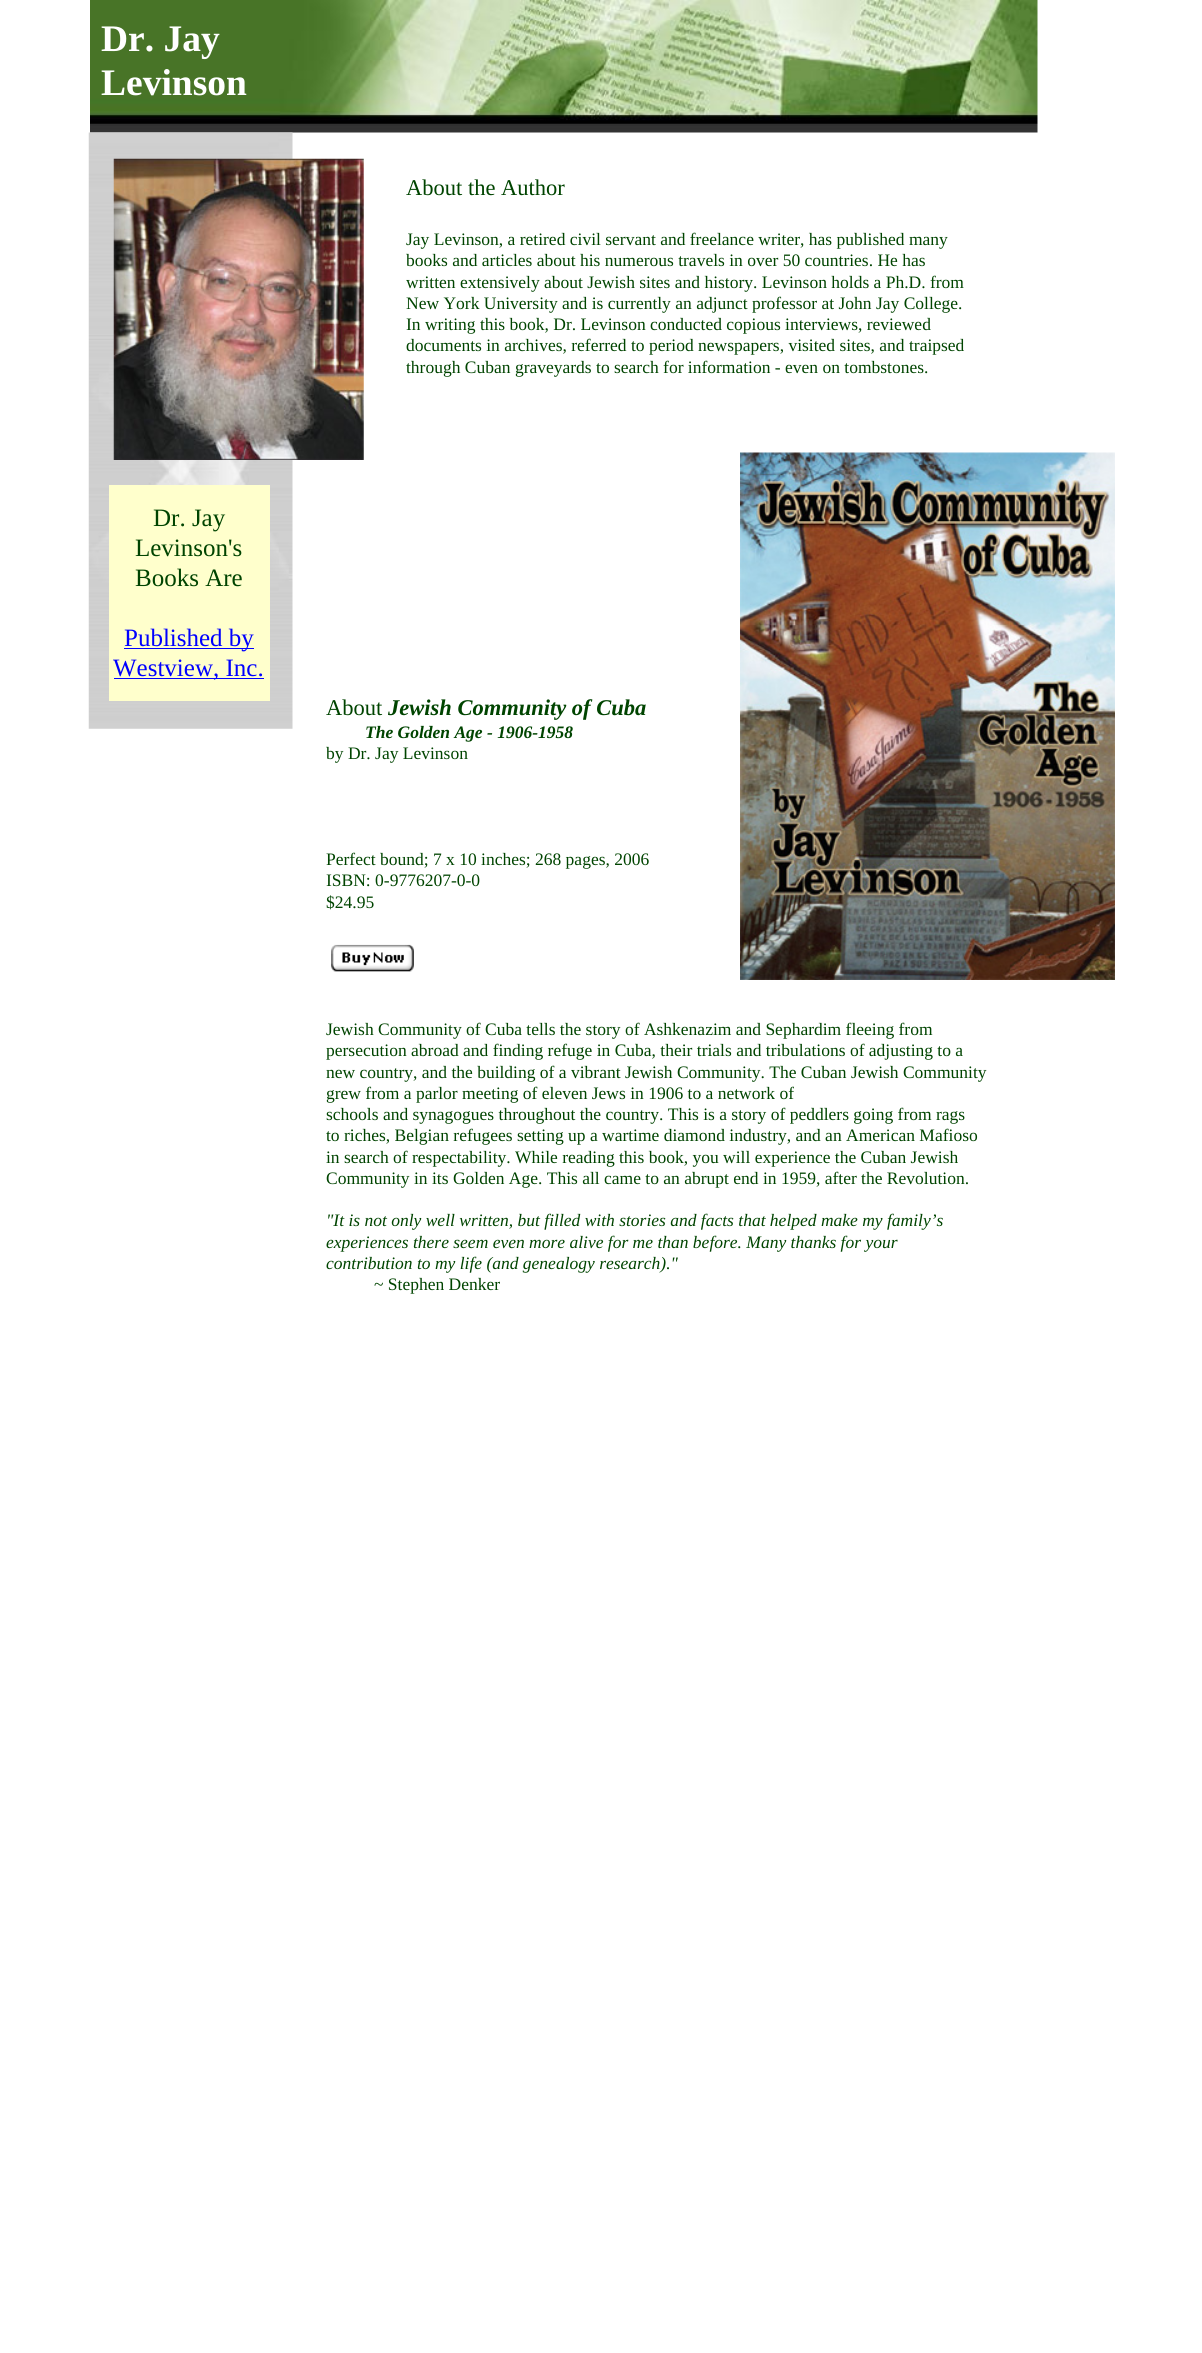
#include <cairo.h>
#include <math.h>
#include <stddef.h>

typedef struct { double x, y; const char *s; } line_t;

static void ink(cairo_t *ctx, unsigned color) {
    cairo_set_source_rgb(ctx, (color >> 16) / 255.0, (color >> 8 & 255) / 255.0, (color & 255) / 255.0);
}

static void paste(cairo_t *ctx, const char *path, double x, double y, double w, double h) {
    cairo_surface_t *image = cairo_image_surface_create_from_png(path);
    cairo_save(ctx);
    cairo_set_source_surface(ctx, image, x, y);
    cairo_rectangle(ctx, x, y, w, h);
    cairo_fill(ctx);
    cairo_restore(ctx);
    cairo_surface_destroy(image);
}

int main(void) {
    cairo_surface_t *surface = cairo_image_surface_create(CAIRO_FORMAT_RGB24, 1202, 2353);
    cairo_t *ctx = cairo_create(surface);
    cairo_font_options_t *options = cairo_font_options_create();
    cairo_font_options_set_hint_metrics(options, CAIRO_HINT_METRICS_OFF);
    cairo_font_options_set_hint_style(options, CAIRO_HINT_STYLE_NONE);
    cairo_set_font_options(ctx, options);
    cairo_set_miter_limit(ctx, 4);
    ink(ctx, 0xFFFFFF);
    cairo_paint(ctx);
    paste(ctx, "media/1.png", 90, 0, 948, 133);
    cairo_select_font_face(ctx, "Liberation Serif", CAIRO_FONT_SLANT_NORMAL, CAIRO_FONT_WEIGHT_BOLD);
    cairo_set_font_size(ctx, 37.5);
    ink(ctx, 0xFFFFFF);
    cairo_move_to(ctx, 101, 51);
    cairo_show_text(ctx, "Dr. Jay");
    cairo_move_to(ctx, 101, 95);
    cairo_show_text(ctx, "Levinson");
    paste(ctx, "media/2.png", 88, 132, 205, 597);
    paste(ctx, "media/3.png", 113, 158, 251, 302);
    cairo_select_font_face(ctx, "Liberation Serif", CAIRO_FONT_SLANT_NORMAL, CAIRO_FONT_WEIGHT_NORMAL);
    cairo_set_font_size(ctx, 22.5);
    ink(ctx, 0x004400);
    cairo_move_to(ctx, 406, 195);
    cairo_show_text(ctx, "About the Author");
    cairo_set_font_size(ctx, 17.5);
    {
        static const line_t items[] = {
            {406, 245, "Jay Levinson, a retired civil servant and freelance writer, has published many"},
            {406, 266, "books and articles about his numerous travels in over 50 countries. He has"},
            {406, 288, "written extensively about Jewish sites and history. Levinson holds a Ph.D. from"},
            {406, 309, "New York University and is currently an adjunct professor at John Jay College."},
            {406, 330, "In writing this book, Dr. Levinson conducted copious interviews, reviewed"},
            {406, 351, "documents in archives, referred to period newspapers, visited sites, and traipsed"},
            {406, 373, "through Cuban graveyards to search for information - even on tombstones."},
        };
        for (size_t i = 0; i < sizeof items / sizeof *items; i++) {
            cairo_move_to(ctx, items[i].x, items[i].y);
            cairo_show_text(ctx, items[i].s);
        }
    }
    ink(ctx, 0xFFFFCC);
    cairo_rectangle(ctx, 109, 485, 161, 216);
    cairo_fill(ctx);
    cairo_set_font_size(ctx, 25);
    ink(ctx, 0x004400);
    {
        static const line_t items[] = {
            {153, 526, "Dr. Jay"},
            {135, 556, "Levinson's"},
            {135, 586, "Books Are"},
        };
        for (size_t i = 0; i < sizeof items / sizeof *items; i++) {
            cairo_move_to(ctx, items[i].x, items[i].y);
            cairo_show_text(ctx, items[i].s);
        }
    }
    ink(ctx, 0x0000FF);
    cairo_rectangle(ctx, 124, 648, 130, 1);
    cairo_fill(ctx);
    cairo_move_to(ctx, 124, 646);
    cairo_show_text(ctx, "Published by");
    cairo_rectangle(ctx, 114, 678, 150, 1);
    cairo_fill(ctx);
    cairo_move_to(ctx, 113, 676);
    cairo_show_text(ctx, "Westview, Inc.");
    paste(ctx, "media/4.png", 740, 452, 375, 528);
    cairo_set_font_size(ctx, 22.5);
    ink(ctx, 0x004400);
    cairo_move_to(ctx, 326, 715);
    cairo_show_text(ctx, "About");
    cairo_select_font_face(ctx, "Liberation Serif", CAIRO_FONT_SLANT_ITALIC, CAIRO_FONT_WEIGHT_BOLD);
    cairo_move_to(ctx, 388, 715);
    cairo_show_text(ctx, "Jewish Community of Cuba");
    cairo_set_font_size(ctx, 17.5);
    cairo_move_to(ctx, 365, 738);
    cairo_show_text(ctx, "The Golden Age - 1906-1958");
    cairo_select_font_face(ctx, "Liberation Serif", CAIRO_FONT_SLANT_NORMAL, CAIRO_FONT_WEIGHT_NORMAL);
    {
        static const line_t items[] = {
            {326, 759, "by Dr. Jay Levinson"},
            {326, 865, "Perfect bound; 7 x 10 inches; 268 pages, 2006"},
            {326, 886, "ISBN: 0-9776207-0-0"},
            {326, 908, "$24.95"},
            {326, 1035, "Jewish Community of Cuba tells the story of Ashkenazim and Sephardim fleeing from"},
            {326, 1056, "persecution abroad and finding refuge in Cuba, their trials and tribulations of adjusting to a"},
            {326, 1078, "new country, and the building of a vibrant Jewish Community. The Cuban Jewish Community"},
            {326, 1099, "grew from a parlor meeting of eleven Jews in 1906 to a network of"},
            {326, 1120, "schools and synagogues throughout the country. This is a story of peddlers going from rags"},
            {326, 1141, "to riches, Belgian refugees setting up a wartime diamond industry, and an American Mafioso"},
            {326, 1163, "in search of respectability. While reading this book, you will experience the Cuban Jewish"},
            {326, 1184, "Community in its Golden Age. This all came to an abrupt end in 1959, after the Revolution."},
        };
        for (size_t i = 0; i < sizeof items / sizeof *items; i++) {
            cairo_move_to(ctx, items[i].x, items[i].y);
            cairo_show_text(ctx, items[i].s);
        }
    }
    cairo_select_font_face(ctx, "Liberation Serif", CAIRO_FONT_SLANT_ITALIC, CAIRO_FONT_WEIGHT_NORMAL);
    {
        static const line_t items[] = {
            {326, 1226, "\"It is not only well written, but filled with stories and facts that helped make my family’s"},
            {326, 1248, "experiences there seem even more alive for me than before. Many thanks for your"},
            {326, 1269, "contribution to my life (and genealogy research).\""},
        };
        for (size_t i = 0; i < sizeof items / sizeof *items; i++) {
            cairo_move_to(ctx, items[i].x, items[i].y);
            cairo_show_text(ctx, items[i].s);
        }
    }
    cairo_select_font_face(ctx, "Liberation Serif", CAIRO_FONT_SLANT_NORMAL, CAIRO_FONT_WEIGHT_NORMAL);
    cairo_move_to(ctx, 374, 1290);
    cairo_show_text(ctx, "~ Stephen Denker");
    paste(ctx, "media/5.png", 331, 944, 83, 28);
    cairo_surface_write_to_png(surface, "image.png");
    cairo_font_options_destroy(options);
    cairo_destroy(ctx);
    cairo_surface_destroy(surface);
    return 0;
}
